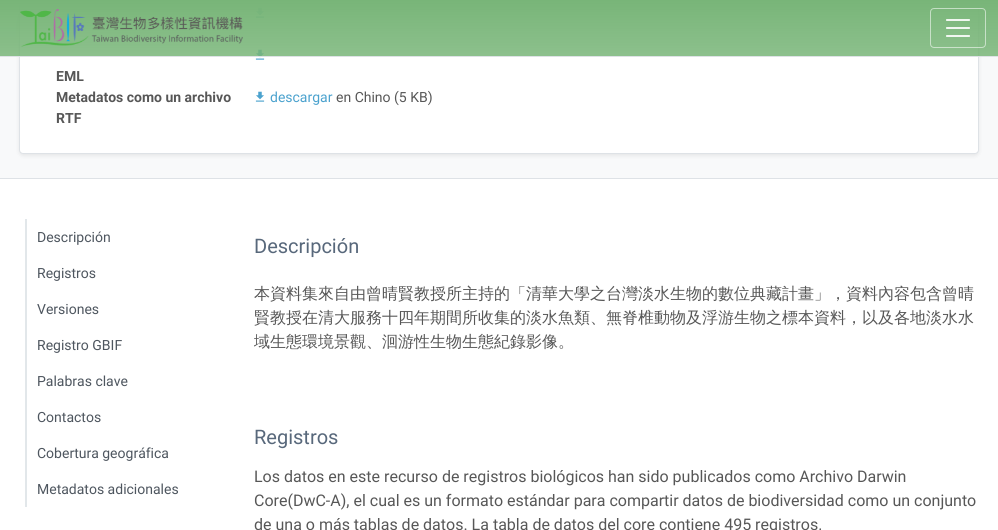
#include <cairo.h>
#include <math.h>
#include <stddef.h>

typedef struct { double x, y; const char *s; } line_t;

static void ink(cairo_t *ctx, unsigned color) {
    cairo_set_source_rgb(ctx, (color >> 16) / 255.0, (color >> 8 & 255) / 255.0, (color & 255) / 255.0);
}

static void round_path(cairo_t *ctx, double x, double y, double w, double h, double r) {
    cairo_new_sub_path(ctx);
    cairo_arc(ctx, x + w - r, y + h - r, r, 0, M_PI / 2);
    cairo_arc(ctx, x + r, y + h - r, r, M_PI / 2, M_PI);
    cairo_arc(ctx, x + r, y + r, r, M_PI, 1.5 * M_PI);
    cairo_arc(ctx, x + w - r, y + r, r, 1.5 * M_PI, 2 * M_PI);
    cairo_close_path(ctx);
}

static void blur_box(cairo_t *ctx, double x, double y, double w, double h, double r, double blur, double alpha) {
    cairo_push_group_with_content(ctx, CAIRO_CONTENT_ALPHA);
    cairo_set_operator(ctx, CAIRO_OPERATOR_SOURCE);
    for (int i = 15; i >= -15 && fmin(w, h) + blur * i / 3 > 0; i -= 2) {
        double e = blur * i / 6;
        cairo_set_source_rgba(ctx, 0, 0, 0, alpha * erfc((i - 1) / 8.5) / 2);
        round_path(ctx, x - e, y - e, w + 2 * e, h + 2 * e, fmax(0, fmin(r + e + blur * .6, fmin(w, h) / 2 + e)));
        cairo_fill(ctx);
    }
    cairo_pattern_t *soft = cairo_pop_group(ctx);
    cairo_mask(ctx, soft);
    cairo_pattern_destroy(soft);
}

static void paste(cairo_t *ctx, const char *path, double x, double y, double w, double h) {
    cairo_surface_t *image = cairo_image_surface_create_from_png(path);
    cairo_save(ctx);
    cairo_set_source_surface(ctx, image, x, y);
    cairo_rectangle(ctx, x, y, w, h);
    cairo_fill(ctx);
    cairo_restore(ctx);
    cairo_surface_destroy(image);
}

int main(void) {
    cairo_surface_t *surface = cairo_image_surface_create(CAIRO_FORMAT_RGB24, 998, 530);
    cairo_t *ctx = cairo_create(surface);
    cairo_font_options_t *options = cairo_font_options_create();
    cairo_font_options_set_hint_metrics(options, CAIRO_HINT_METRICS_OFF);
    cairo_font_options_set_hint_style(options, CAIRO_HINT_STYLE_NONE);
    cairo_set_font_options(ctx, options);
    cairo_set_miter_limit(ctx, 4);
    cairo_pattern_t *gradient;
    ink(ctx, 0xFFFFFF);
    cairo_paint(ctx);
    ink(ctx, 0xF8F9FA);
    cairo_rectangle(ctx, 0, 2, 998, 176);
    cairo_fill(ctx);
    ink(ctx, 0x000000);
    blur_box(ctx, 19, -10, 960, 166, 4, 2, 0.07);
    ink(ctx, 0xFFFFFF);
    round_path(ctx, 19.5, -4.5, 959, 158, 3.5);
    cairo_fill_preserve(ctx);
    ink(ctx, 0xDEE2E6);
    cairo_set_line_width(ctx, 1);
    cairo_stroke(ctx);
    paste(ctx, "media/4.png", 255, 7, 10, 11);
    paste(ctx, "media/4.png", 255, 49, 10, 11);
    gradient = cairo_pattern_create_linear(499, 0, 499, 56);
    cairo_pattern_add_color_stop_rgba(gradient, 0, 0.471, 0.71, 0.471, 1);
    cairo_pattern_add_color_stop_rgba(gradient, 1, 0.471, 0.71, 0.471, 0.85);
    cairo_set_source(ctx, gradient);
    cairo_pattern_destroy(gradient);
    cairo_rectangle(ctx, 0, 0, 998, 56);
    cairo_fill(ctx);
    ink(ctx, 0xDEE2E6);
    cairo_rectangle(ctx, 0, 56, 998, 1);
    cairo_fill(ctx);
    paste(ctx, "media/1.png", 20, 9, 223, 38);
    round_path(ctx, 930.5, 8.5, 55, 39, 3.5);
    cairo_set_source_rgba(ctx, 1, 1, 1, 0.55);
    cairo_stroke(ctx);
    paste(ctx, "media/2.png", 946, 19, 24, 18);
    paste(ctx, "media/3.png", 946, 19, 24, 18);
    ink(ctx, 0xDEE2E6);
    cairo_rectangle(ctx, 0, 178, 998, 1);
    cairo_fill(ctx);
    cairo_select_font_face(ctx, "Roboto", CAIRO_FONT_SLANT_NORMAL, CAIRO_FONT_WEIGHT_BOLD);
    cairo_set_font_size(ctx, 14);
    ink(ctx, 0x575757);
    {
        static const line_t items[] = {
            {56, 81, "EML"},
            {56, 102, "Metadatos como un archivo"},
            {56, 123, "RTF"},
        };
        for (size_t i = 0; i < sizeof items / sizeof *items; i++) {
            cairo_move_to(ctx, items[i].x, items[i].y);
            cairo_show_text(ctx, items[i].s);
        }
    }
    paste(ctx, "media/4.png", 255, 91, 10, 11);
    cairo_select_font_face(ctx, "Roboto", CAIRO_FONT_SLANT_NORMAL, CAIRO_FONT_WEIGHT_NORMAL);
    ink(ctx, 0x4BA2CE);
    cairo_move_to(ctx, 270, 102);
    cairo_show_text(ctx, "descargar");
    ink(ctx, 0x575757);
    cairo_move_to(ctx, 336, 102);
    cairo_show_text(ctx, "en Chino (5 KB)");
    ink(ctx, 0xE2E7EA);
    cairo_rectangle(ctx, 25, 219, 2, 288);
    cairo_fill(ctx);
    ink(ctx, 0x4E565F);
    {
        static const line_t items[] = {
            {37, 242, "Descripción"},
            {37, 278, "Registros"},
            {37, 314, "Versiones"},
            {37, 350, "Registro GBIF"},
            {37, 386, "Palabras clave"},
            {37, 422, "Contactos"},
            {37, 458, "Cobertura geográfica"},
            {37, 494, "Metadatos adicionales"},
        };
        for (size_t i = 0; i < sizeof items / sizeof *items; i++) {
            cairo_move_to(ctx, items[i].x, items[i].y);
            cairo_show_text(ctx, items[i].s);
        }
    }
    cairo_set_font_size(ctx, 20);
    ink(ctx, 0x58687B);
    cairo_move_to(ctx, 254, 253);
    cairo_show_text(ctx, "Descripción");
    cairo_select_font_face(ctx, "WenQuanYi Zen Hei Medium", CAIRO_FONT_SLANT_NORMAL, CAIRO_FONT_WEIGHT_NORMAL);
    cairo_set_font_size(ctx, 16);
    ink(ctx, 0x575757);
    {
        static const line_t items[] = {
            {254, 299, "本資料集來自由曾晴賢教授所主持的「清華大學之台灣淡水生物的數位典藏計畫」，資料內容包含曾晴"},
            {254, 323, "賢教授在清大服務十四年期間所收集的淡水魚類、無脊椎動物及浮游生物之標本資料，以及各地淡水水"},
            {254, 347, "域生態環境景觀、洄游性生物生態紀錄影像。"},
        };
        for (size_t i = 0; i < sizeof items / sizeof *items; i++) {
            cairo_move_to(ctx, items[i].x, items[i].y);
            cairo_show_text(ctx, items[i].s);
        }
    }
    cairo_select_font_face(ctx, "Roboto", CAIRO_FONT_SLANT_NORMAL, CAIRO_FONT_WEIGHT_NORMAL);
    cairo_set_font_size(ctx, 20);
    ink(ctx, 0x58687B);
    cairo_move_to(ctx, 254, 444);
    cairo_show_text(ctx, "Registros");
    cairo_set_font_size(ctx, 16);
    ink(ctx, 0x575757);
    {
        static const line_t items[] = {
            {254, 482, "Los datos en este recurso de registros biológicos han sido publicados como Archivo Darwin"},
            {254, 506, "Core(DwC-A), el cual es un formato estándar para compartir datos de biodiversidad como un conjunto"},
            {254, 530, "de una o más tablas de datos. La tabla de datos del core contiene 495 registros."},
        };
        for (size_t i = 0; i < sizeof items / sizeof *items; i++) {
            cairo_move_to(ctx, items[i].x, items[i].y);
            cairo_show_text(ctx, items[i].s);
        }
    }
    cairo_surface_write_to_png(surface, "image.png");
    cairo_font_options_destroy(options);
    cairo_destroy(ctx);
    cairo_surface_destroy(surface);
    return 0;
}
